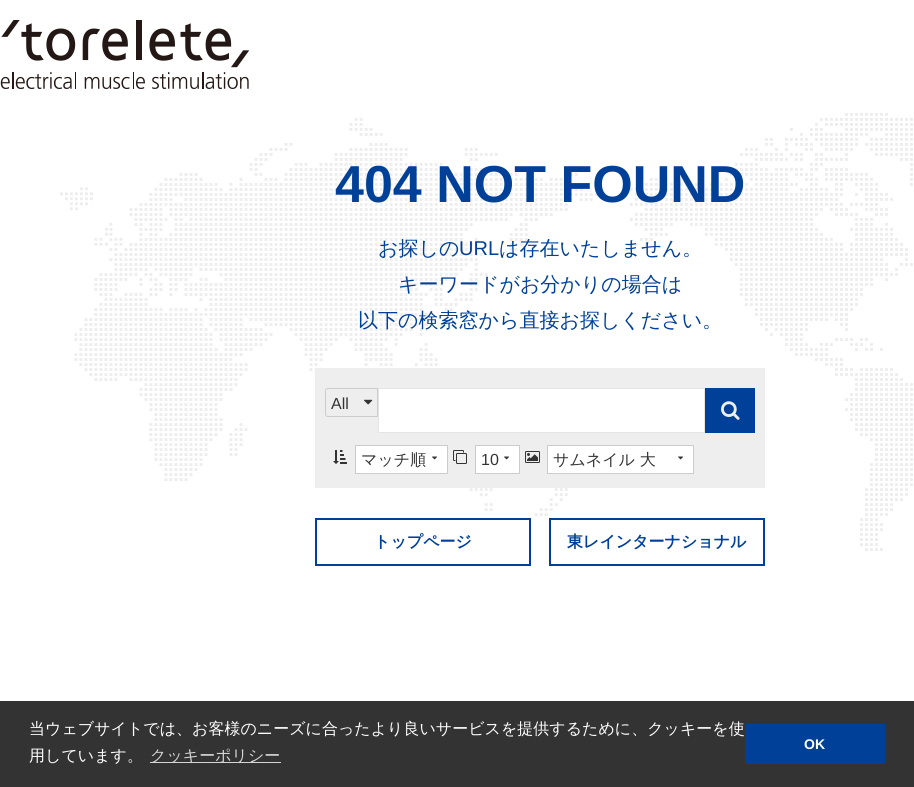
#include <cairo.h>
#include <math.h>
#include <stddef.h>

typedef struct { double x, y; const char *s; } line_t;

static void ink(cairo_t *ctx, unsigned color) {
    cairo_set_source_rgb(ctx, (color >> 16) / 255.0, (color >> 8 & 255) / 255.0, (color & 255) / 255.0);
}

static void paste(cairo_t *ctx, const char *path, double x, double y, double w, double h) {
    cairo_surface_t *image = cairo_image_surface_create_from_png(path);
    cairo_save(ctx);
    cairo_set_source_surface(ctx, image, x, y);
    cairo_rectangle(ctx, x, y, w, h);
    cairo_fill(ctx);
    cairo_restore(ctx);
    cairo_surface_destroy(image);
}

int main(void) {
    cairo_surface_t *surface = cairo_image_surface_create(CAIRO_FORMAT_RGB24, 914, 787);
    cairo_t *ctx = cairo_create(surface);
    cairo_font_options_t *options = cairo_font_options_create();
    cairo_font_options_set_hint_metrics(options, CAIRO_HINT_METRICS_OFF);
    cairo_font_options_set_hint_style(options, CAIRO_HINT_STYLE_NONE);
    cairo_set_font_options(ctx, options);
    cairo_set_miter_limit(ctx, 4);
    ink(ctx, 0xFFFFFF);
    cairo_paint(ctx);
    paste(ctx, "media/1.png", 0, 20, 250, 69);
    paste(ctx, "media/2.png", 60, 113, 853, 438);
    cairo_select_font_face(ctx, "Liberation Sans", CAIRO_FONT_SLANT_NORMAL, CAIRO_FONT_WEIGHT_BOLD);
    cairo_set_font_size(ctx, 52);
    ink(ctx, 0x014099);
    cairo_move_to(ctx, 335, 202);
    cairo_show_text(ctx, "404 NOT FOUND");
    cairo_select_font_face(ctx, "WenQuanYi Zen Hei Medium", CAIRO_FONT_SLANT_NORMAL, CAIRO_FONT_WEIGHT_NORMAL);
    cairo_set_font_size(ctx, 20);
    cairo_move_to(ctx, 378, 255);
    cairo_show_text(ctx, "お探しの");
    cairo_select_font_face(ctx, "Liberation Sans", CAIRO_FONT_SLANT_NORMAL, CAIRO_FONT_WEIGHT_NORMAL);
    cairo_move_to(ctx, 459, 255);
    cairo_show_text(ctx, "URL");
    cairo_select_font_face(ctx, "WenQuanYi Zen Hei Medium", CAIRO_FONT_SLANT_NORMAL, CAIRO_FONT_WEIGHT_NORMAL);
    {
        static const line_t items[] = {
            {499, 255, "は存在いたしません。"},
            {398, 291, "キーワードがお分かりの場合は"},
            {358, 327, "以下の検索窓から直接お探しください。"},
        };
        for (size_t i = 0; i < sizeof items / sizeof *items; i++) {
            cairo_move_to(ctx, items[i].x, items[i].y);
            cairo_show_text(ctx, items[i].s);
        }
    }
    ink(ctx, 0xEEEEEE);
    cairo_rectangle(ctx, 315, 368, 450, 120);
    cairo_fill(ctx);
    cairo_new_path(ctx);
    cairo_move_to(ctx, 328, 388.5);
    cairo_line_to(ctx, 377.5, 388.5);
    cairo_line_to(ctx, 377.5, 416.5);
    cairo_line_to(ctx, 328, 416.5);
    cairo_curve_to(ctx, 326.5, 416.5, 325.5, 415.5, 325.5, 414);
    cairo_line_to(ctx, 325.5, 391);
    cairo_curve_to(ctx, 325.5, 389.5, 326.5, 388.5, 328, 388.5);
    cairo_close_path(ctx);
    ink(ctx, 0xCCCCCC);
    cairo_set_line_width(ctx, 1);
    cairo_stroke(ctx);
    cairo_select_font_face(ctx, "Liberation Sans", CAIRO_FONT_SLANT_NORMAL, CAIRO_FONT_WEIGHT_NORMAL);
    cairo_set_font_size(ctx, 16);
    ink(ctx, 0x333333);
    cairo_move_to(ctx, 331, 409);
    cairo_show_text(ctx, "All");
    paste(ctx, "media/3.png", 364, 399, 9, 6);
    ink(ctx, 0xFFFFFF);
    cairo_rectangle(ctx, 378.5, 388.5, 326, 44);
    cairo_fill_preserve(ctx);
    ink(ctx, 0xE5E5E5);
    cairo_stroke(ctx);
    ink(ctx, 0x014099);
    cairo_rectangle(ctx, 705, 388, 50, 45);
    cairo_fill(ctx);
    paste(ctx, "media/4.png", 721, 401, 19, 19);
    paste(ctx, "media/5.png", 333, 450, 14, 14);
    ink(ctx, 0xFFFFFF);
    cairo_rectangle(ctx, 355.5, 445.5, 92, 28);
    cairo_fill_preserve(ctx);
    ink(ctx, 0xCCCCCC);
    cairo_stroke(ctx);
    cairo_select_font_face(ctx, "WenQuanYi Zen Hei Medium", CAIRO_FONT_SLANT_NORMAL, CAIRO_FONT_WEIGHT_NORMAL);
    ink(ctx, 0x333333);
    cairo_move_to(ctx, 361, 465);
    cairo_show_text(ctx, "マッチ順");
    paste(ctx, "media/6.png", 432, 456, 6, 4);
    paste(ctx, "media/7.png", 453, 450, 14, 14);
    ink(ctx, 0xFFFFFF);
    cairo_rectangle(ctx, 475.5, 445.5, 44, 28);
    cairo_fill_preserve(ctx);
    ink(ctx, 0xCCCCCC);
    cairo_stroke(ctx);
    cairo_select_font_face(ctx, "Liberation Sans", CAIRO_FONT_SLANT_NORMAL, CAIRO_FONT_WEIGHT_NORMAL);
    ink(ctx, 0x333333);
    cairo_move_to(ctx, 481, 465);
    cairo_show_text(ctx, "10");
    paste(ctx, "media/6.png", 504, 456, 6, 4);
    paste(ctx, "media/8.png", 525, 451, 15, 12);
    ink(ctx, 0xFFFFFF);
    cairo_rectangle(ctx, 547.5, 445.5, 146, 28);
    cairo_fill_preserve(ctx);
    ink(ctx, 0xCCCCCC);
    cairo_stroke(ctx);
    cairo_select_font_face(ctx, "WenQuanYi Zen Hei Medium", CAIRO_FONT_SLANT_NORMAL, CAIRO_FONT_WEIGHT_NORMAL);
    ink(ctx, 0x333333);
    cairo_move_to(ctx, 553, 465);
    cairo_show_text(ctx, "サムネイル 大");
    paste(ctx, "media/6.png", 678, 456, 6, 4);
    cairo_rectangle(ctx, 316, 519, 214, 46);
    ink(ctx, 0x014099);
    cairo_set_line_width(ctx, 2);
    cairo_stroke(ctx);
    cairo_select_font_face(ctx, "WenQuanYi Zen Hei", CAIRO_FONT_SLANT_NORMAL, CAIRO_FONT_WEIGHT_BOLD);
    cairo_move_to(ctx, 374, 547);
    cairo_show_text(ctx, "トップページ");
    cairo_rectangle(ctx, 550, 519, 214, 46);
    cairo_stroke(ctx);
    cairo_move_to(ctx, 567, 547);
    cairo_show_text(ctx, "東レインターナショナル");
    ink(ctx, 0x333333);
    cairo_rectangle(ctx, 0, 701, 914, 86);
    cairo_fill(ctx);
    cairo_select_font_face(ctx, "WenQuanYi Zen Hei Medium", CAIRO_FONT_SLANT_NORMAL, CAIRO_FONT_WEIGHT_NORMAL);
    ink(ctx, 0xFFFFFF);
    cairo_move_to(ctx, 29, 734);
    cairo_show_text(ctx, "当ウェブサイトでは、お客様のニーズに合ったより良いサービスを提供するために、クッキーを使");
    cairo_move_to(ctx, 29, 761);
    cairo_show_text(ctx, "用しています。");
    ink(ctx, 0xD6D6D6);
    cairo_rectangle(ctx, 150, 762, 131, 1);
    cairo_fill(ctx);
    cairo_move_to(ctx, 150, 761);
    cairo_show_text(ctx, "クッキーポリシー");
    ink(ctx, 0x014099);
    cairo_rectangle(ctx, 745, 724, 140, 40);
    cairo_fill(ctx);
    cairo_select_font_face(ctx, "Liberation Sans", CAIRO_FONT_SLANT_NORMAL, CAIRO_FONT_WEIGHT_BOLD);
    cairo_set_font_size(ctx, 14);
    ink(ctx, 0xFFFFFF);
    cairo_move_to(ctx, 804, 749);
    cairo_show_text(ctx, "OK");
    cairo_surface_write_to_png(surface, "image.png");
    cairo_font_options_destroy(options);
    cairo_destroy(ctx);
    cairo_surface_destroy(surface);
    return 0;
}
